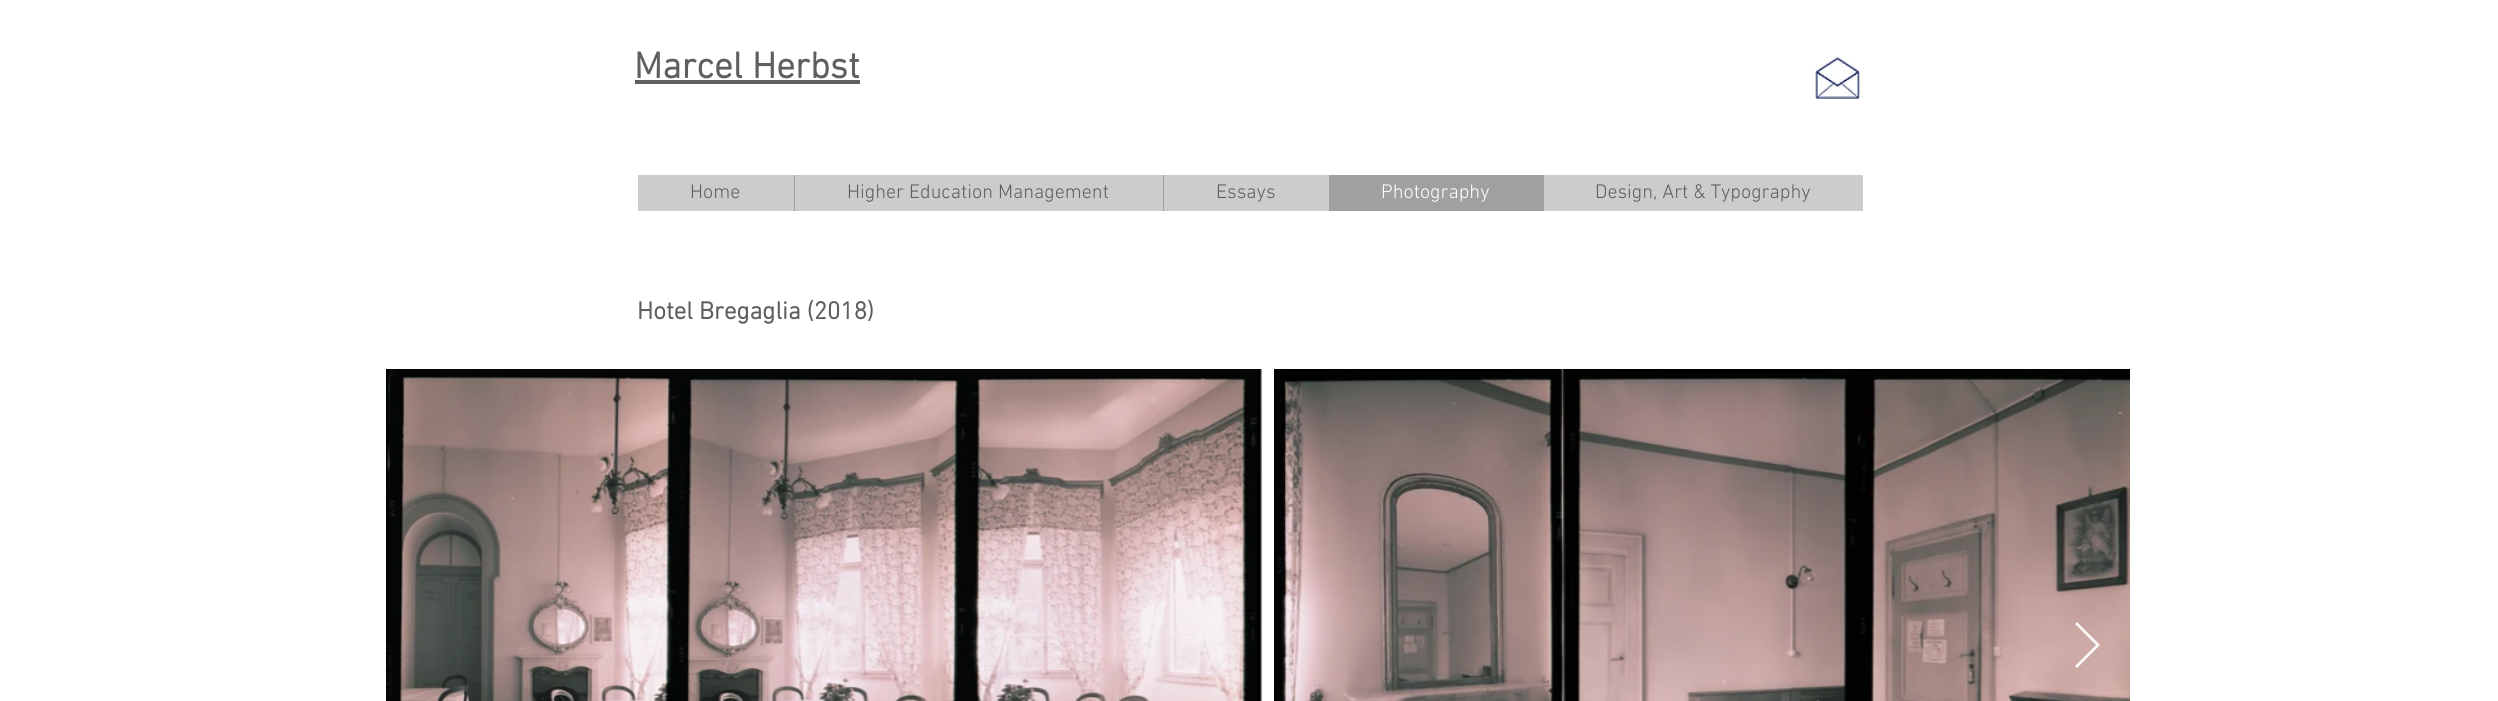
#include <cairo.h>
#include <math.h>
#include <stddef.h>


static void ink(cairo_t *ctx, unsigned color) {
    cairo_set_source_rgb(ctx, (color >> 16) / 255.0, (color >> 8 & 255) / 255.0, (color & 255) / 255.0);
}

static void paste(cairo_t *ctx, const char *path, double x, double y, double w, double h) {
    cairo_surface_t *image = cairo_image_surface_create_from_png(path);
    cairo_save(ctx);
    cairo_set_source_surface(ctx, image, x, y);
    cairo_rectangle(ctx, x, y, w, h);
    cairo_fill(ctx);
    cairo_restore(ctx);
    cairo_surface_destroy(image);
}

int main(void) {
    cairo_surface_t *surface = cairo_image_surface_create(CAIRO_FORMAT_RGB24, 2498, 701);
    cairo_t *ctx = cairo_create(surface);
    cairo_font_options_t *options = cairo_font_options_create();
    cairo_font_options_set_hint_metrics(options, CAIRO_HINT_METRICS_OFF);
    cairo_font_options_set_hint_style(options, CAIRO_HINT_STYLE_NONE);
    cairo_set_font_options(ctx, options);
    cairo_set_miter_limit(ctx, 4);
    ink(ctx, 0xFFFFFF);
    cairo_paint(ctx);
    cairo_select_font_face(ctx, "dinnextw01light", CAIRO_FONT_SLANT_NORMAL, CAIRO_FONT_WEIGHT_BOLD);
    cairo_set_font_size(ctx, 37.5);
    ink(ctx, 0x605E5E);
    cairo_move_to(ctx, 634, 78);
    cairo_show_text(ctx, "Marcel Herbst");
    cairo_rectangle(ctx, 635, 80, 225, 4);
    cairo_fill(ctx);
    paste(ctx, "media/1.png", 1815, 57, 46, 42);
    ink(ctx, 0xCCCCCC);
    cairo_rectangle(ctx, 638, 175, 1225, 36);
    cairo_fill(ctx);
    cairo_select_font_face(ctx, "dinnextw01light Light", CAIRO_FONT_SLANT_NORMAL, CAIRO_FONT_WEIGHT_NORMAL);
    cairo_set_font_size(ctx, 20);
    ink(ctx, 0x605E5E);
    cairo_move_to(ctx, 690, 198);
    cairo_show_text(ctx, "Home");
    ink(ctx, 0xA0A09F);
    cairo_rectangle(ctx, 794, 175, 1, 36);
    cairo_fill(ctx);
    ink(ctx, 0x605E5E);
    cairo_move_to(ctx, 847, 198);
    cairo_show_text(ctx, "Higher Education Management");
    ink(ctx, 0xA0A09F);
    cairo_rectangle(ctx, 1163, 175, 1, 36);
    cairo_fill(ctx);
    ink(ctx, 0x605E5E);
    cairo_move_to(ctx, 1216, 198);
    cairo_show_text(ctx, "Essays");
    ink(ctx, 0xA0A09F);
    cairo_rectangle(ctx, 1329, 175, 215, 36);
    cairo_fill(ctx);
    ink(ctx, 0xFFFFFF);
    cairo_move_to(ctx, 1381, 198);
    cairo_show_text(ctx, "Photography");
    ink(ctx, 0x605E5E);
    cairo_move_to(ctx, 1595, 198);
    cairo_show_text(ctx, "Design, Art & Typography");
    cairo_select_font_face(ctx, "dinnextw01light", CAIRO_FONT_SLANT_NORMAL, CAIRO_FONT_WEIGHT_BOLD);
    cairo_set_font_size(ctx, 25);
    cairo_move_to(ctx, 637, 319);
    cairo_show_text(ctx, "Hotel Bregaglia (2018)");
    paste(ctx, "media/2.png", 386, 369, 876, 332);
    paste(ctx, "media/3.png", 1274, 369, 856, 332);
    cairo_set_source_rgba(ctx, 1, 1, 1, 0.9);
    cairo_new_path(ctx);
    cairo_move_to(ctx, 2075, 624);
    cairo_line_to(ctx, 2077, 622);
    cairo_line_to(ctx, 2100, 645);
    cairo_line_to(ctx, 2077, 668);
    cairo_line_to(ctx, 2075, 666);
    cairo_line_to(ctx, 2096, 645);
    cairo_close_path(ctx);
    cairo_fill(ctx);
    cairo_surface_write_to_png(surface, "image.png");
    cairo_font_options_destroy(options);
    cairo_destroy(ctx);
    cairo_surface_destroy(surface);
    return 0;
}
